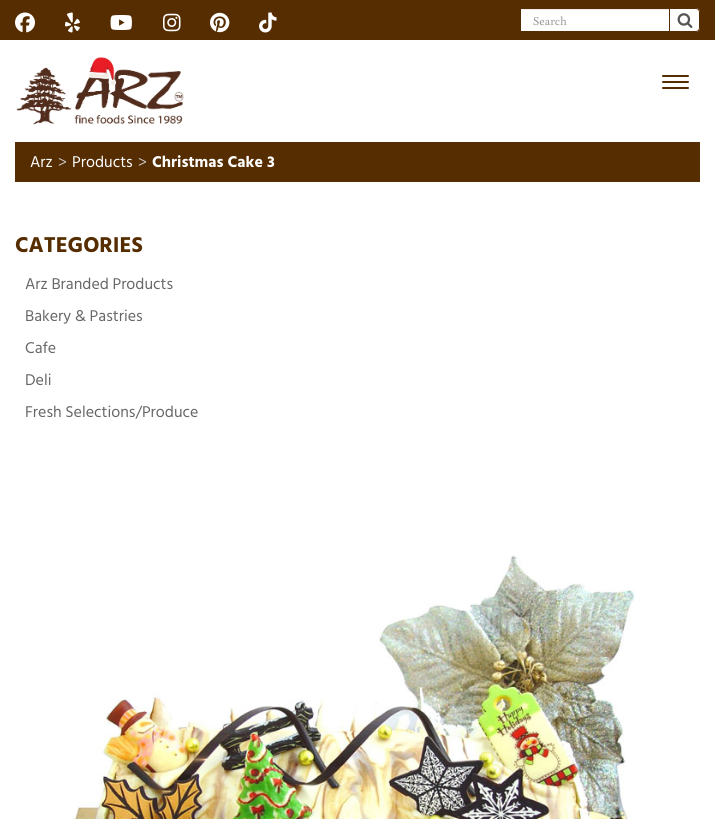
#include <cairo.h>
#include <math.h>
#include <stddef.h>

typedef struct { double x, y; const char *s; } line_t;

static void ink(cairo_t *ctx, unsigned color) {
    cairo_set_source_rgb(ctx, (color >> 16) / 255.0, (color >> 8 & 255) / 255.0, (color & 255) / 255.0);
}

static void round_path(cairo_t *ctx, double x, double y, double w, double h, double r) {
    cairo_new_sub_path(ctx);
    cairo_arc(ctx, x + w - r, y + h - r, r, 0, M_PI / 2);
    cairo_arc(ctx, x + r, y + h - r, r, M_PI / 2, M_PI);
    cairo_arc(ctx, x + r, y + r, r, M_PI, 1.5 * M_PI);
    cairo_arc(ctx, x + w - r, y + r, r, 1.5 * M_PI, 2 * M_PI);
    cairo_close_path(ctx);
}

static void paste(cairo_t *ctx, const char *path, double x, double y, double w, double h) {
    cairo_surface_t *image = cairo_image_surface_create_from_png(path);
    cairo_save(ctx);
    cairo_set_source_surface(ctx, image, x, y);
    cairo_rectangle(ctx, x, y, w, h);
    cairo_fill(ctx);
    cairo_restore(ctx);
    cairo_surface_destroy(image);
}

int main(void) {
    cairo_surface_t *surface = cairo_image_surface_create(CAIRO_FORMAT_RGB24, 715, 819);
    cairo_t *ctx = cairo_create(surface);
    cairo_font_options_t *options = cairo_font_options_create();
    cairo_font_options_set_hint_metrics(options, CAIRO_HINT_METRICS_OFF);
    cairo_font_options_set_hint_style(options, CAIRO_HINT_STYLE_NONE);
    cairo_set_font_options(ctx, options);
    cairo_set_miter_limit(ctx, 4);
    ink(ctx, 0xFFFFFF);
    cairo_paint(ctx);
    ink(ctx, 0x552D00);
    cairo_rectangle(ctx, 0, 0, 715, 40);
    cairo_fill(ctx);
    paste(ctx, "media/1.png", 15, 12, 20, 21);
    paste(ctx, "media/2.png", 65, 12, 15, 21);
    paste(ctx, "media/3.png", 110, 15, 22, 15);
    paste(ctx, "media/4.png", 163, 13, 18, 19);
    paste(ctx, "media/5.png", 210, 12, 20, 21);
    paste(ctx, "media/6.png", 259, 12, 18, 21);
    ink(ctx, 0xFFFFFF);
    cairo_rectangle(ctx, 521, 10, 148, 21);
    cairo_fill(ctx);
    ink(ctx, 0xECECEC);
    cairo_rectangle(ctx, 521, 9, 148, 1);
    cairo_fill(ctx);
    cairo_select_font_face(ctx, "Buenard", CAIRO_FONT_SLANT_NORMAL, CAIRO_FONT_WEIGHT_NORMAL);
    cairo_set_font_size(ctx, 12);
    ink(ctx, 0x999999);
    cairo_move_to(ctx, 533, 25);
    cairo_show_text(ctx, "Search");
    ink(ctx, 0xFFFFFF);
    cairo_new_path(ctx);
    cairo_move_to(ctx, 670, 8);
    cairo_line_to(ctx, 696, 8);
    cairo_curve_to(ctx, 698, 8, 700, 10, 700, 12);
    cairo_line_to(ctx, 700, 28);
    cairo_curve_to(ctx, 700, 30, 698, 32, 696, 32);
    cairo_line_to(ctx, 670, 32);
    cairo_close_path(ctx);
    cairo_fill(ctx);
    ink(ctx, 0x552D00);
    cairo_set_fill_rule(ctx, CAIRO_FILL_RULE_EVEN_ODD);
    cairo_new_path(ctx);
    cairo_move_to(ctx, 670, 8);
    cairo_line_to(ctx, 696, 8);
    cairo_curve_to(ctx, 698, 8, 700, 10, 700, 12);
    cairo_line_to(ctx, 700, 28);
    cairo_curve_to(ctx, 700, 30, 698, 32, 696, 32);
    cairo_line_to(ctx, 670, 32);
    cairo_close_path(ctx);
    cairo_move_to(ctx, 670, 9);
    cairo_line_to(ctx, 696, 9);
    cairo_curve_to(ctx, 697.5, 9, 699, 10.5, 699, 12);
    cairo_line_to(ctx, 699, 28);
    cairo_curve_to(ctx, 699, 29.5, 697.5, 31, 696, 31);
    cairo_line_to(ctx, 670, 31);
    cairo_close_path(ctx);
    cairo_fill(ctx);
    paste(ctx, "media/7.png", 677, 13, 16, 15);
    paste(ctx, "media/8.png", 16, 57, 168, 68);
    round_path(ctx, 662, 75, 27, 2, 1);
    cairo_fill(ctx);
    round_path(ctx, 662, 81, 27, 2, 1);
    cairo_fill(ctx);
    round_path(ctx, 662, 87, 27, 2, 1);
    cairo_fill(ctx);
    cairo_rectangle(ctx, 15, 142, 685, 40);
    cairo_fill(ctx);
    cairo_select_font_face(ctx, "Hind Siliguri", CAIRO_FONT_SLANT_NORMAL, CAIRO_FONT_WEIGHT_NORMAL);
    cairo_set_font_size(ctx, 16);
    ink(ctx, 0xFFFFFF);
    cairo_move_to(ctx, 30, 167);
    cairo_show_text(ctx, "Arz");
    cairo_select_font_face(ctx, "Hind Siliguri Light", CAIRO_FONT_SLANT_NORMAL, CAIRO_FONT_WEIGHT_NORMAL);
    cairo_set_font_size(ctx, 18);
    ink(ctx, 0xCCCCCC);
    cairo_move_to(ctx, 58, 168);
    cairo_show_text(ctx, ">");
    cairo_select_font_face(ctx, "Hind Siliguri", CAIRO_FONT_SLANT_NORMAL, CAIRO_FONT_WEIGHT_NORMAL);
    cairo_set_font_size(ctx, 16);
    ink(ctx, 0xFFFFFF);
    cairo_move_to(ctx, 72, 167);
    cairo_show_text(ctx, "Products");
    cairo_select_font_face(ctx, "Hind Siliguri Light", CAIRO_FONT_SLANT_NORMAL, CAIRO_FONT_WEIGHT_NORMAL);
    cairo_set_font_size(ctx, 18);
    ink(ctx, 0xCCCCCC);
    cairo_move_to(ctx, 138, 168);
    cairo_show_text(ctx, ">");
    cairo_select_font_face(ctx, "Hind Siliguri", CAIRO_FONT_SLANT_NORMAL, CAIRO_FONT_WEIGHT_BOLD);
    cairo_set_font_size(ctx, 16);
    ink(ctx, 0xFFFFFF);
    cairo_move_to(ctx, 152, 167);
    cairo_show_text(ctx, "Christmas Cake 3");
    cairo_set_font_size(ctx, 22);
    ink(ctx, 0x552D00);
    cairo_move_to(ctx, 15, 252);
    cairo_show_text(ctx, "CATEGORIES");
    cairo_select_font_face(ctx, "Hind Siliguri", CAIRO_FONT_SLANT_NORMAL, CAIRO_FONT_WEIGHT_NORMAL);
    cairo_set_font_size(ctx, 16);
    ink(ctx, 0x676767);
    {
        static const line_t items[] = {
            {25, 289, "Arz Branded Products"},
            {25, 321, "Bakery & Pastries"},
            {25, 353, "Cafe"},
            {25, 385, "Deli"},
            {25, 417, "Fresh Selections/Produce"},
        };
        for (size_t i = 0; i < sizeof items / sizeof *items; i++) {
            cairo_move_to(ctx, items[i].x, items[i].y);
            cairo_show_text(ctx, items[i].s);
        }
    }
    paste(ctx, "media/9.png", 71, 555, 565, 264);
    cairo_surface_write_to_png(surface, "image.png");
    cairo_font_options_destroy(options);
    cairo_destroy(ctx);
    cairo_surface_destroy(surface);
    return 0;
}
